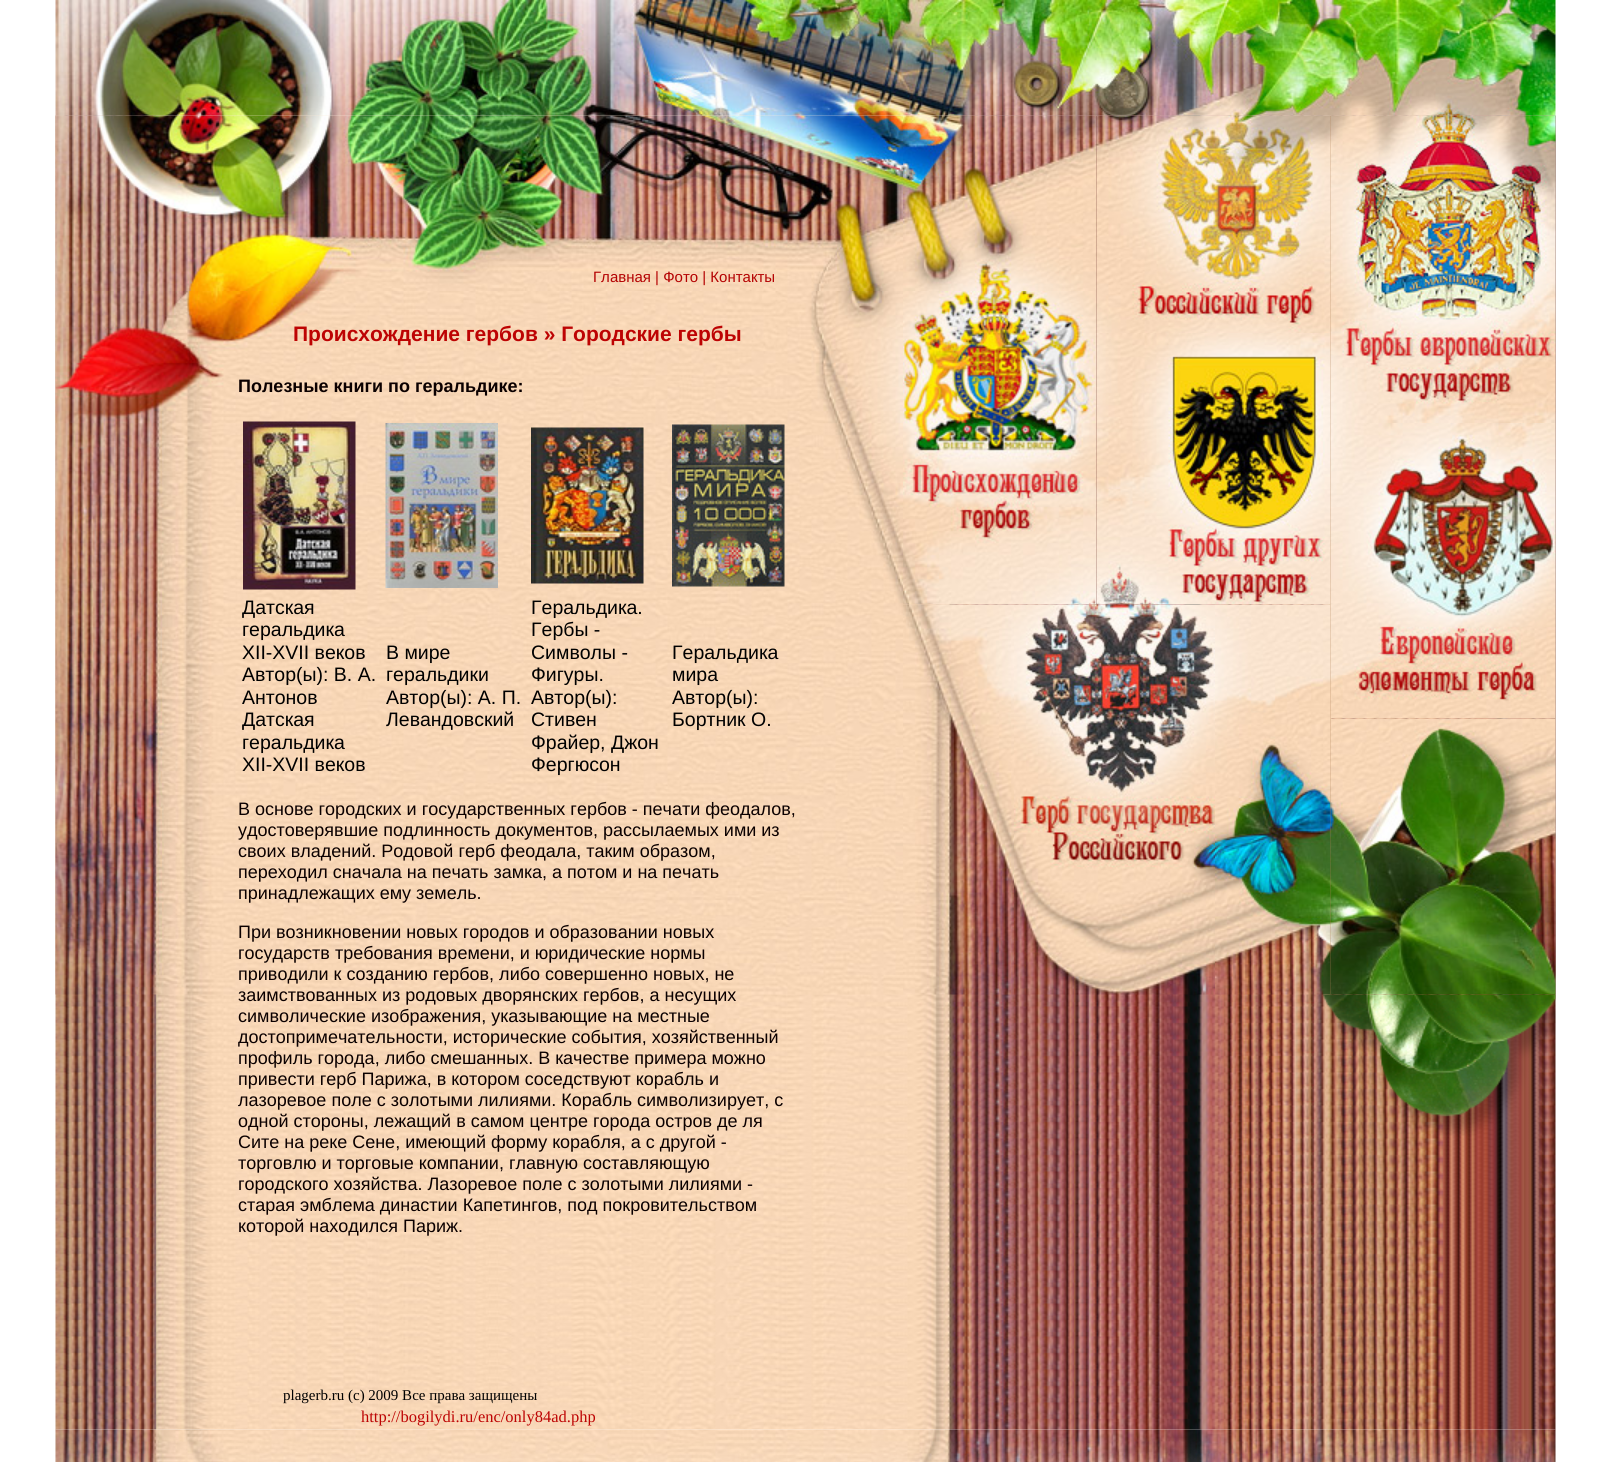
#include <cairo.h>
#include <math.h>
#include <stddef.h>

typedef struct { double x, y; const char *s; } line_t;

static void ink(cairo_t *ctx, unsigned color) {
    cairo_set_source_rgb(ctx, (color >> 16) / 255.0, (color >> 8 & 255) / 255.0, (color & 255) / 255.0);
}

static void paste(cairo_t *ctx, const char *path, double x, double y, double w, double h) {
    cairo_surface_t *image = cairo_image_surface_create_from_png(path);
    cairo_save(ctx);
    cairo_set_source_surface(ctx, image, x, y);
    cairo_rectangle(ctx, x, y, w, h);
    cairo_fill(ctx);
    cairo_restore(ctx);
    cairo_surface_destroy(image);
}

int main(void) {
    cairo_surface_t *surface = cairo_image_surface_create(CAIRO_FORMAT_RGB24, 1609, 1462);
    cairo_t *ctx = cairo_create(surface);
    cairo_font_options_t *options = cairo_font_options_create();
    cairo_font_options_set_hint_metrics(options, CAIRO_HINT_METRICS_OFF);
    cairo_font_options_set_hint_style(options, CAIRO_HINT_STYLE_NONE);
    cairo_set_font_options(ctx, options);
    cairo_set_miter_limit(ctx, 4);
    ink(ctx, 0xFFFFFF);
    cairo_paint(ctx);
    paste(ctx, "media/3.png", 55, 115, 1501, 1315);
    paste(ctx, "media/4.png", 55, 115, 848, 176);
    paste(ctx, "media/1.png", 55, 0, 1501, 116);
    paste(ctx, "media/11.png", 903, 291, 194, 314);
    paste(ctx, "media/13.png", 1096, 333, 235, 272);
    paste(ctx, "media/16.png", 1215, 604, 116, 391);
    paste(ctx, "media/18.png", 1330, 423, 226, 296);
    paste(ctx, "media/19.png", 1330, 718, 226, 277);
    paste(ctx, "media/2.png", 1322, 994, 234, 142);
    cairo_select_font_face(ctx, "Liberation Sans", CAIRO_FONT_SLANT_NORMAL, CAIRO_FONT_WEIGHT_NORMAL);
    cairo_set_font_size(ctx, 15);
    ink(ctx, 0xB40202);
    cairo_move_to(ctx, 593, 282);
    cairo_show_text(ctx, "Главная | Фото | Контакты");
    paste(ctx, "media/5.png", 55, 291, 848, 704);
    cairo_select_font_face(ctx, "Liberation Sans", CAIRO_FONT_SLANT_NORMAL, CAIRO_FONT_WEIGHT_BOLD);
    cairo_set_font_size(ctx, 21);
    ink(ctx, 0xBD0303);
    cairo_move_to(ctx, 293, 341);
    cairo_show_text(ctx, "Происхождение гербов » Городские гербы");
    cairo_set_font_size(ctx, 18);
    ink(ctx, 0x0B0000);
    cairo_move_to(ctx, 238, 392);
    cairo_show_text(ctx, "Полезные книги по геральдике:");
    paste(ctx, "media/6.png", 243, 421, 113, 169);
    paste(ctx, "media/7.png", 385, 423, 113, 165);
    paste(ctx, "media/8.png", 531, 427, 113, 157);
    paste(ctx, "media/9.png", 672, 424, 113, 163);
    cairo_select_font_face(ctx, "Liberation Sans", CAIRO_FONT_SLANT_NORMAL, CAIRO_FONT_WEIGHT_NORMAL);
    cairo_set_font_size(ctx, 19.5);
    ink(ctx, 0x000000);
    {
        static const line_t items[] = {
            {242, 614, "Датская"},
            {242, 636, "геральдика"},
            {242, 659, "XII-XVII веков"},
            {242, 681, "Автор(ы): В. А."},
            {242, 704, "Антонов"},
            {242, 726, "Датская"},
            {242, 749, "геральдика"},
            {242, 771, "XII-XVII веков"},
            {386, 659, "В мире"},
            {386, 681, "геральдики"},
            {386, 704, "Автор(ы): А. П."},
            {386, 726, "Левандовский"},
            {531, 614, "Геральдика."},
            {531, 636, "Гербы -"},
            {531, 659, "Символы -"},
            {531, 681, "Фигуры."},
            {531, 704, "Автор(ы):"},
            {531, 726, "Стивен"},
            {531, 749, "Фрайер, Джон"},
            {531, 771, "Фергюсон"},
            {672, 659, "Геральдика"},
            {672, 681, "мира"},
            {672, 704, "Автор(ы):"},
            {672, 726, "Бортник О."},
        };
        for (size_t i = 0; i < sizeof items / sizeof *items; i++) {
            cairo_move_to(ctx, items[i].x, items[i].y);
            cairo_show_text(ctx, items[i].s);
        }
    }
    cairo_set_font_size(ctx, 18);
    ink(ctx, 0x0B0000);
    {
        static const line_t items[] = {
            {238, 815, "В основе городских и государственных гербов - печати феодалов,"},
            {238, 836, "удостоверявшие подлинность документов, рассылаемых ими из"},
            {238, 857, "своих владений. Родовой герб феодала, таким образом,"},
            {238, 878, "переходил сначала на печать замка, а потом и на печать"},
            {238, 899, "принадлежащих ему земель."},
            {238, 938, "При возникновении новых городов и образовании новых"},
            {238, 959, "государств требования времени, и юридические нормы"},
            {238, 980, "приводили к созданию гербов, либо совершенно новых, не"},
            {238, 1001, "заимствованных из родовых дворянских гербов, а несущих"},
            {238, 1022, "символические изображения, указывающие на местные"},
            {238, 1043, "достопримечательности, исторические события, хозяйственный"},
            {238, 1064, "профиль города, либо смешанных. В качестве примера можно"},
            {238, 1085, "привести герб Парижа, в котором соседствуют корабль и"},
            {238, 1106, "лазоревое поле с золотыми лилиями. Корабль символизирует, с"},
            {238, 1127, "одной стороны, лежащий в самом центре города остров де ля"},
            {238, 1148, "Сите на реке Сене, имеющий форму корабля, а с другой -"},
            {238, 1169, "торговлю и торговые компании, главную составляющую"},
            {238, 1190, "городского хозяйства. Лазоревое поле с золотыми лилиями -"},
            {238, 1211, "старая эмблема династии Капетингов, под покровительством"},
            {238, 1232, "которой находился Париж."},
        };
        for (size_t i = 0; i < sizeof items / sizeof *items; i++) {
            cairo_move_to(ctx, items[i].x, items[i].y);
            cairo_show_text(ctx, items[i].s);
        }
    }
    cairo_select_font_face(ctx, "Liberation Serif", CAIRO_FONT_SLANT_NORMAL, CAIRO_FONT_WEIGHT_NORMAL);
    cairo_set_font_size(ctx, 15);
    ink(ctx, 0x000000);
    cairo_move_to(ctx, 283, 1400);
    cairo_show_text(ctx, "plagerb.ru (с) 2009 Все права защищены");
    cairo_set_font_size(ctx, 16.5);
    ink(ctx, 0xBD0303);
    cairo_move_to(ctx, 361, 1422);
    cairo_show_text(ctx, "http://bogilydi.ru/enc/only84ad.php");
    paste(ctx, "media/10.png", 903, 115, 194, 176);
    paste(ctx, "media/12.png", 1096, 115, 235, 218);
    paste(ctx, "media/14.png", 903, 604, 111, 391);
    paste(ctx, "media/15.png", 1014, 604, 201, 391);
    paste(ctx, "media/17.png", 1330, 115, 226, 308);
    paste(ctx, "media/20.png", 55, 1429, 1501, 33);
    paste(ctx, "media/21.png", 55, 1430, 1501, 32);
    cairo_surface_write_to_png(surface, "image.png");
    cairo_font_options_destroy(options);
    cairo_destroy(ctx);
    cairo_surface_destroy(surface);
    return 0;
}
